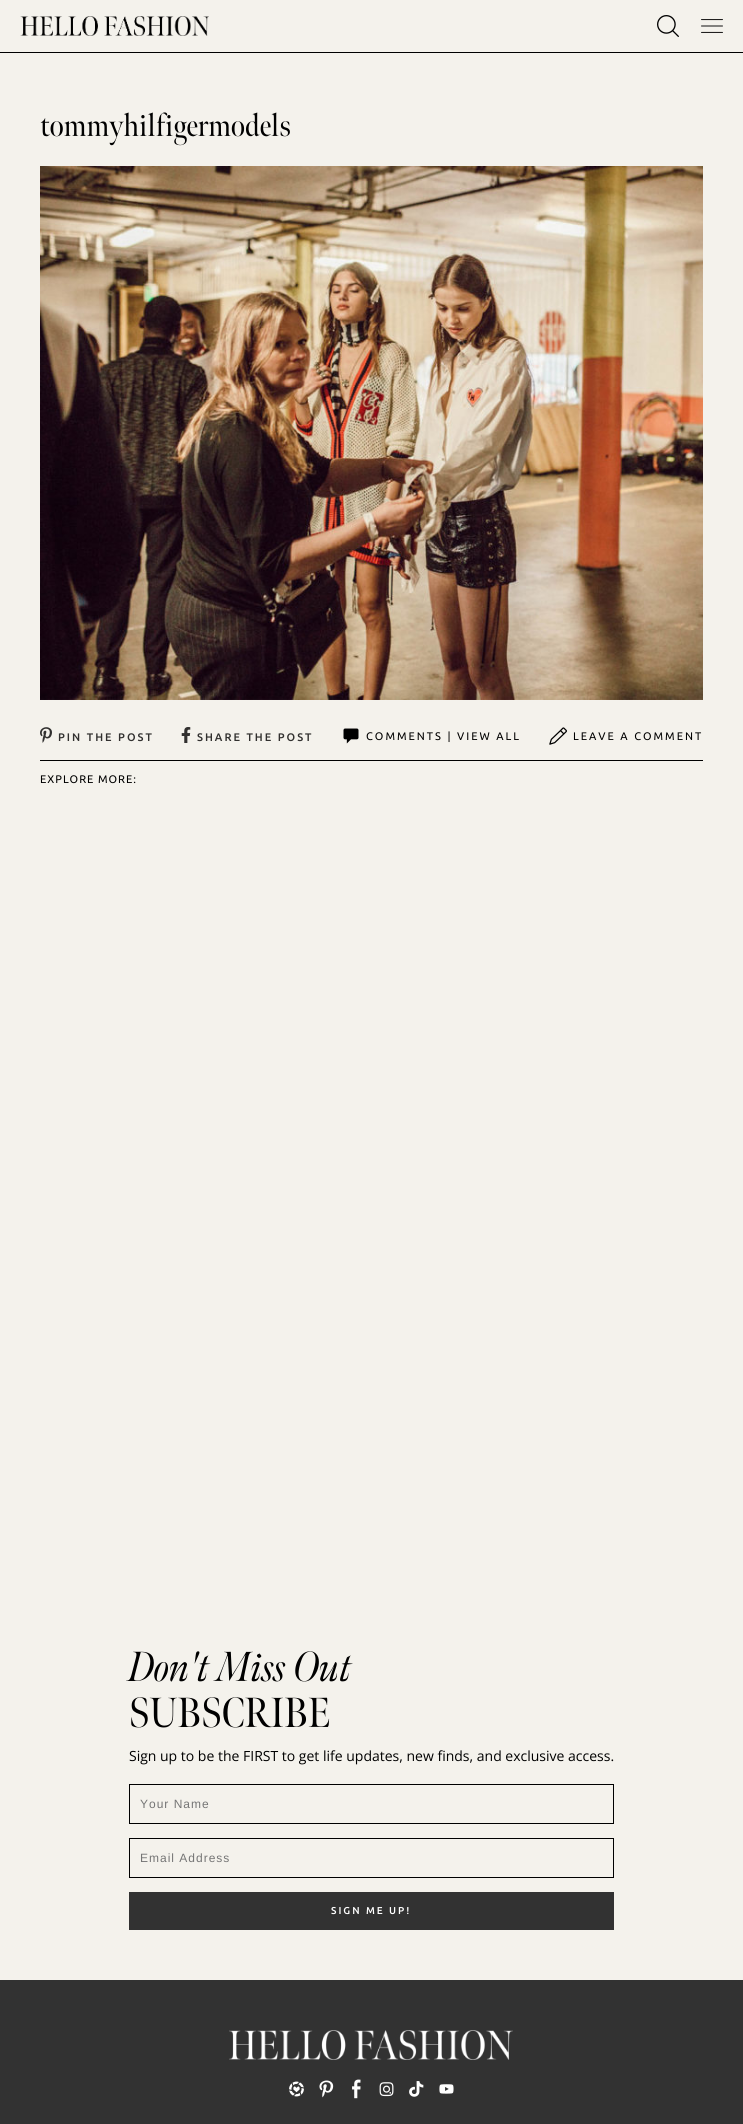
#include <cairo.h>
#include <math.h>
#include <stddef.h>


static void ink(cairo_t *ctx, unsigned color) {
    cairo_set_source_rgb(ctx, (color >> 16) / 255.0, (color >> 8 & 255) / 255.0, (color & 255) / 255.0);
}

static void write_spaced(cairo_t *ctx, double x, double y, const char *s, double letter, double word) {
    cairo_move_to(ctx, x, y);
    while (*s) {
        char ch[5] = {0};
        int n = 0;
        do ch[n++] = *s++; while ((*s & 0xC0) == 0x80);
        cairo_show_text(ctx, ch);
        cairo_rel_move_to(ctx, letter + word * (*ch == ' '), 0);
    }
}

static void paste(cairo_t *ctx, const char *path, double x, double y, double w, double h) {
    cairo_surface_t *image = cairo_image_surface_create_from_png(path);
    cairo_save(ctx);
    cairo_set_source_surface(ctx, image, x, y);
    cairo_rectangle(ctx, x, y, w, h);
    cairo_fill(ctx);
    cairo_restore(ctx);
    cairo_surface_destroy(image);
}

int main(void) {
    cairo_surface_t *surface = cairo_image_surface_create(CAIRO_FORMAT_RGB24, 743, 2124);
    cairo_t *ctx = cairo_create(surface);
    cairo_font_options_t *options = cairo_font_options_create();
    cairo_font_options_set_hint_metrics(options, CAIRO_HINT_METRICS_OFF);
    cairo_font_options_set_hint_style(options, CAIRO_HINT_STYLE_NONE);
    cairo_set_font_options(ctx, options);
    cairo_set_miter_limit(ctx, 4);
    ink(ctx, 0xF4F2EC);
    cairo_paint(ctx);
    ink(ctx, 0x000000);
    cairo_rectangle(ctx, 0, 52, 743, 1);
    cairo_fill(ctx);
    paste(ctx, "media/1.png", 20, 16, 189, 20);
    paste(ctx, "media/2.png", 657, 15, 22, 22);
    paste(ctx, "media/3.png", 701, 19, 22, 14);
    cairo_select_font_face(ctx, "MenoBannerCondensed", CAIRO_FONT_SLANT_NORMAL, CAIRO_FONT_WEIGHT_NORMAL);
    cairo_set_font_size(ctx, 32);
    cairo_move_to(ctx, 40, 136);
    cairo_show_text(ctx, "tommyhilfigermodels");
    paste(ctx, "media/4.png", 40, 166, 663, 534);
    cairo_rectangle(ctx, 40, 760, 663, 1);
    cairo_fill(ctx);
    paste(ctx, "media/5.png", 40, 727, 12, 16);
    cairo_select_font_face(ctx, "Ubuntu Medium", CAIRO_FONT_SLANT_NORMAL, CAIRO_FONT_WEIGHT_NORMAL);
    cairo_set_font_size(ctx, 11);
    ink(ctx, 0x31302F);
    write_spaced(ctx, 58, 741, "PIN THE POST", 2, 0);
    paste(ctx, "media/6.png", 181, 727, 10, 16);
    write_spaced(ctx, 197, 741, "SHARE THE POST", 2, 0);
    paste(ctx, "media/7.png", 343, 728, 16, 16);
    cairo_select_font_face(ctx, "Ubuntu", CAIRO_FONT_SLANT_NORMAL, CAIRO_FONT_WEIGHT_NORMAL);
    ink(ctx, 0x000000);
    write_spaced(ctx, 366, 740, "COMMENTS | VIEW ALL", 2, 0);
    paste(ctx, "media/8.png", 549, 727, 18, 18);
    write_spaced(ctx, 573, 740, "LEAVE A COMMENT", 2, 0);
    write_spaced(ctx, 40, 783, "EXPLORE MORE:", 1, 0);
    cairo_select_font_face(ctx, "MenoBannerCondensed", CAIRO_FONT_SLANT_ITALIC, CAIRO_FONT_WEIGHT_NORMAL);
    cairo_set_font_size(ctx, 42);
    cairo_move_to(ctx, 129, 1681);
    cairo_show_text(ctx, "Don't Miss Out");
    cairo_select_font_face(ctx, "MenoBannerCondensed", CAIRO_FONT_SLANT_NORMAL, CAIRO_FONT_WEIGHT_NORMAL);
    cairo_move_to(ctx, 129, 1727);
    cairo_show_text(ctx, "SUBSCRIBE");
    cairo_select_font_face(ctx, "Open Sans", CAIRO_FONT_SLANT_NORMAL, CAIRO_FONT_WEIGHT_NORMAL);
    cairo_set_font_size(ctx, 14);
    cairo_move_to(ctx, 129, 1761);
    cairo_show_text(ctx, "Sign up to be the FIRST to get life updates, new finds, and exclusive access.");
    cairo_rectangle(ctx, 129.5, 1784.5, 484, 39);
    cairo_set_line_width(ctx, 1);
    cairo_stroke(ctx);
    cairo_select_font_face(ctx, "Liberation Sans", CAIRO_FONT_SLANT_NORMAL, CAIRO_FONT_WEIGHT_NORMAL);
    cairo_set_font_size(ctx, 12);
    ink(ctx, 0x757575);
    write_spaced(ctx, 140, 1808, "Your Name", 1, 0);
    cairo_rectangle(ctx, 129.5, 1838.5, 484, 39);
    ink(ctx, 0x000000);
    cairo_stroke(ctx);
    ink(ctx, 0x757575);
    write_spaced(ctx, 140, 1862, "Email Address", 1, 0);
    ink(ctx, 0x323232);
    cairo_rectangle(ctx, 129, 1892, 485, 38);
    cairo_fill(ctx);
    cairo_select_font_face(ctx, "Ubuntu Medium", CAIRO_FONT_SLANT_NORMAL, CAIRO_FONT_WEIGHT_NORMAL);
    cairo_set_font_size(ctx, 10);
    ink(ctx, 0xFFFFFF);
    write_spaced(ctx, 331, 1914, "SIGN ME UP!", 2, 0);
    ink(ctx, 0x323232);
    cairo_rectangle(ctx, 0, 1980, 743, 144);
    cairo_fill(ctx);
    paste(ctx, "media/9.png", 229, 2030, 284, 30);
    paste(ctx, "media/10.png", 289, 2081, 15, 16);
    paste(ctx, "media/11.png", 319, 2080, 15, 18);
    paste(ctx, "media/12.png", 352, 2079, 9, 20);
    paste(ctx, "media/13.png", 379, 2082, 15, 15);
    paste(ctx, "media/14.png", 409, 2081, 15, 16);
    paste(ctx, "media/15.png", 439, 2084, 15, 10);
    cairo_surface_write_to_png(surface, "image.png");
    cairo_font_options_destroy(options);
    cairo_destroy(ctx);
    cairo_surface_destroy(surface);
    return 0;
}
